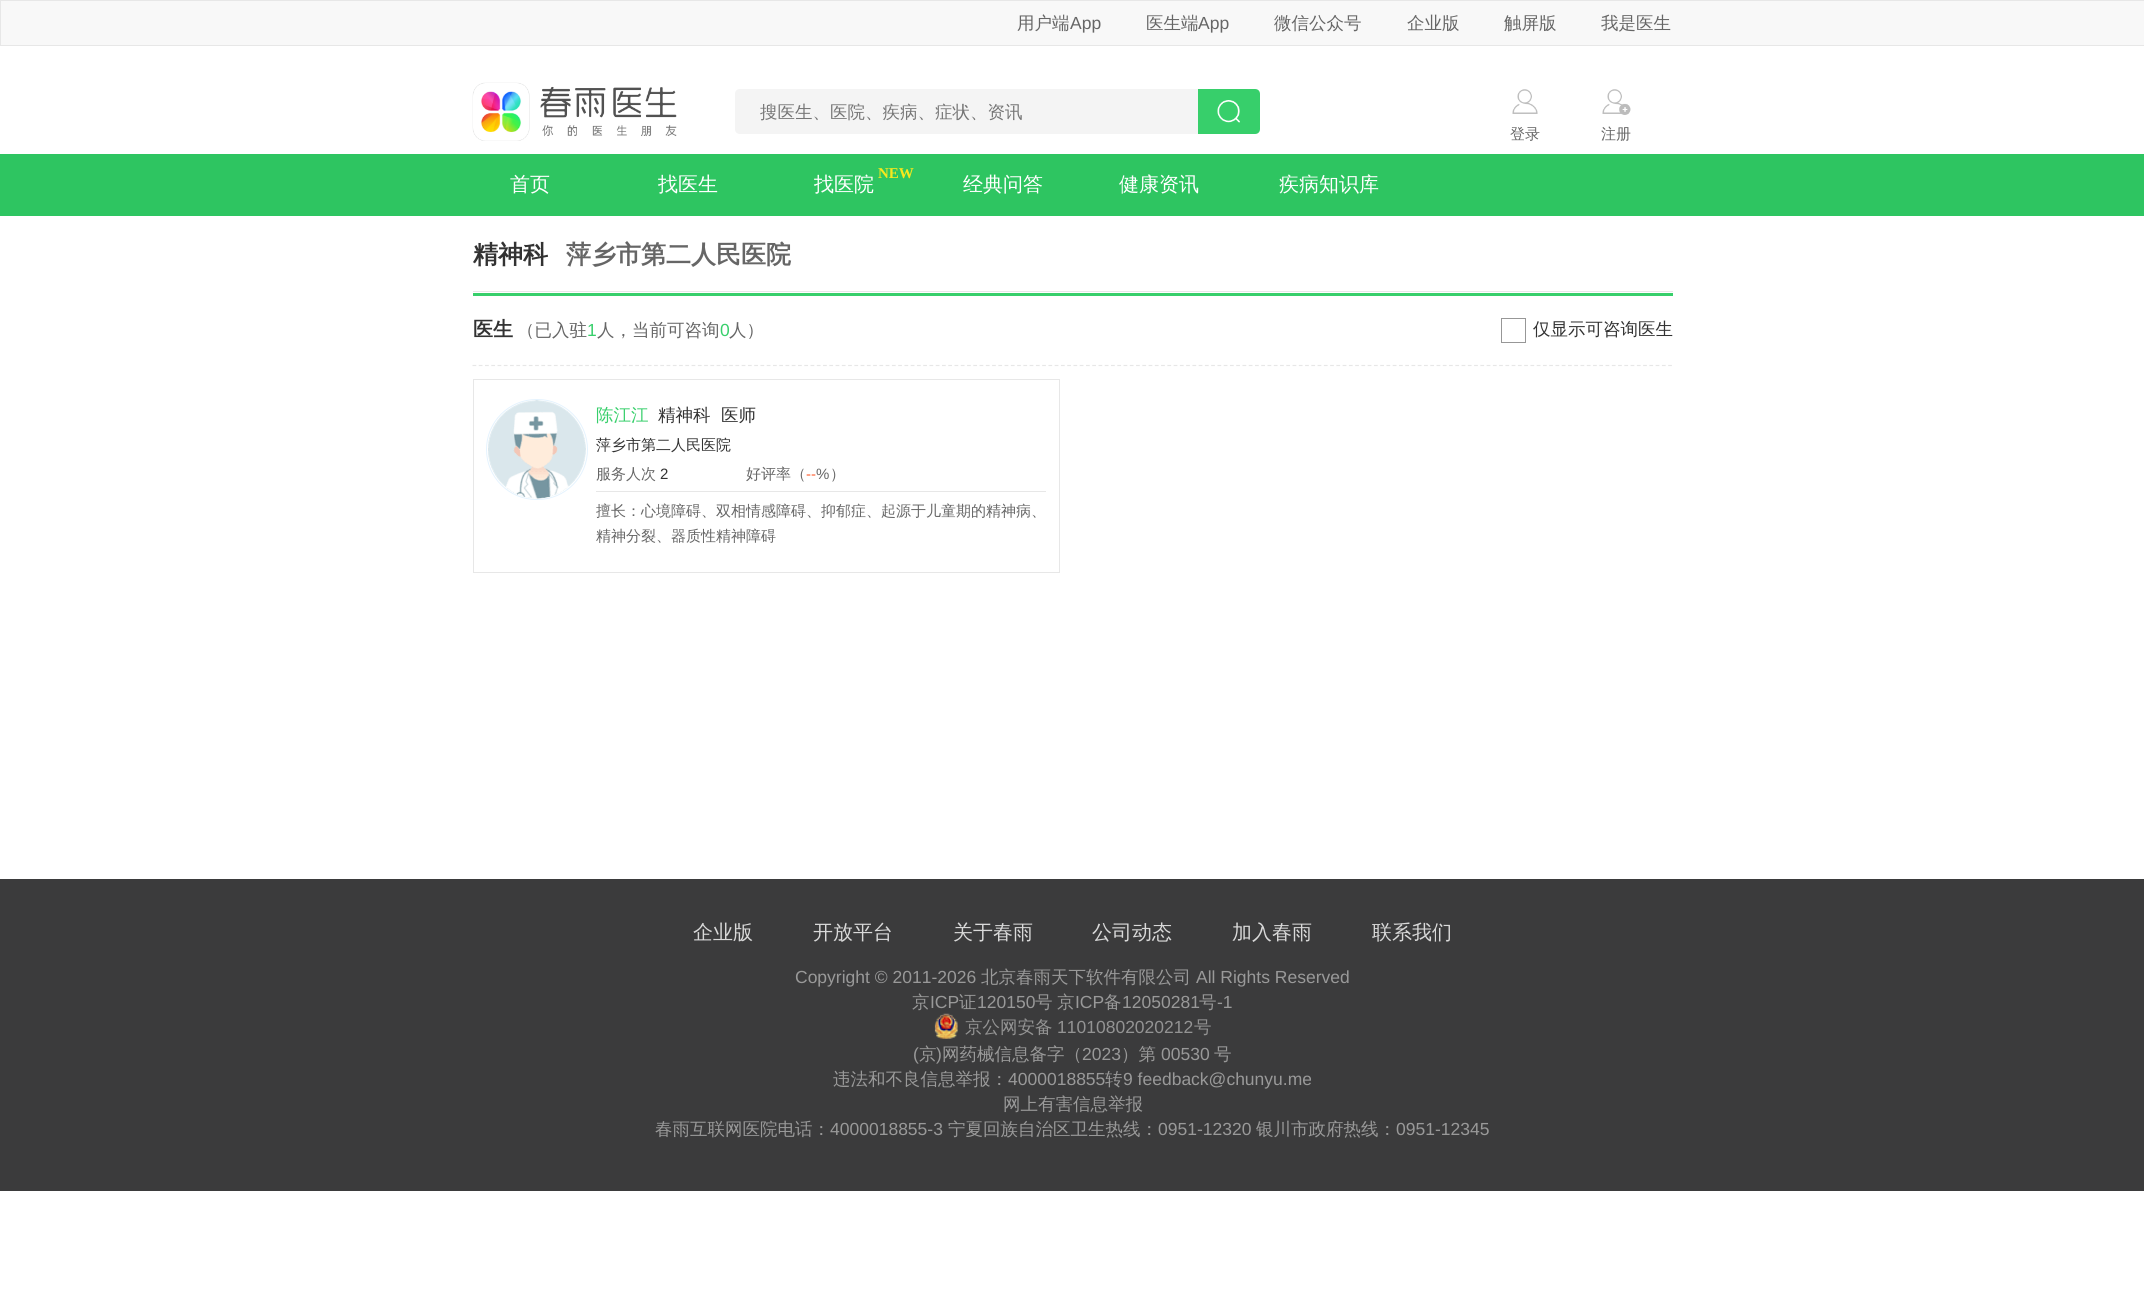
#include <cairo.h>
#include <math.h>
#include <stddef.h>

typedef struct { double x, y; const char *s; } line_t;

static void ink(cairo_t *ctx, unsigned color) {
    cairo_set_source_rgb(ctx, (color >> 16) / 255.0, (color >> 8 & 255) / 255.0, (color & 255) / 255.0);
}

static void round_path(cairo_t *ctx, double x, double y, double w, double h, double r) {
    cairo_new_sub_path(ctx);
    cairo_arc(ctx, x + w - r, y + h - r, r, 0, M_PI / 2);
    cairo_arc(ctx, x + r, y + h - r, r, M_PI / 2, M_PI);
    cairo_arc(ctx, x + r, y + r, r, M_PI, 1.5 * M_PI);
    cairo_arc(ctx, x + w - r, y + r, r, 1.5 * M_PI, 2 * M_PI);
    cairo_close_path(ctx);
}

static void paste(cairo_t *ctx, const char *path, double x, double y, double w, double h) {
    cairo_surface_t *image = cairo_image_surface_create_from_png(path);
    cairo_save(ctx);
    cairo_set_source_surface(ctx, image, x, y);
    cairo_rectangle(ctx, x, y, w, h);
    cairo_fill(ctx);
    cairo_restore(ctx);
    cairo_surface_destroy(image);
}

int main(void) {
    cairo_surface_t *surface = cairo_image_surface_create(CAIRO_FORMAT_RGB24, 2144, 1292);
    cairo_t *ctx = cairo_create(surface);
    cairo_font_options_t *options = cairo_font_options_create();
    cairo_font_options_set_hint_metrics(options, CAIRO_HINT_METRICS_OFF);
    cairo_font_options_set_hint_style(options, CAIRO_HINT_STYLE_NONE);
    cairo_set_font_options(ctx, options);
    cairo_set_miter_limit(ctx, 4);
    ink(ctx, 0xFFFFFF);
    cairo_paint(ctx);
    ink(ctx, 0xF8F8F8);
    cairo_rectangle(ctx, 0.5, 0.5, 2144, 45);
    cairo_fill_preserve(ctx);
    ink(ctx, 0xE7E7E7);
    cairo_set_line_width(ctx, 1);
    cairo_stroke(ctx);
    cairo_select_font_face(ctx, "WenQuanYi Zen Hei Medium", CAIRO_FONT_SLANT_NORMAL, CAIRO_FONT_WEIGHT_NORMAL);
    cairo_set_font_size(ctx, 17.5);
    ink(ctx, 0x666666);
    cairo_move_to(ctx, 1017, 29);
    cairo_show_text(ctx, "用户端");
    cairo_select_font_face(ctx, "Liberation Sans", CAIRO_FONT_SLANT_NORMAL, CAIRO_FONT_WEIGHT_NORMAL);
    cairo_move_to(ctx, 1070, 29);
    cairo_show_text(ctx, "App");
    cairo_select_font_face(ctx, "WenQuanYi Zen Hei Medium", CAIRO_FONT_SLANT_NORMAL, CAIRO_FONT_WEIGHT_NORMAL);
    cairo_move_to(ctx, 1146, 29);
    cairo_show_text(ctx, "医生端");
    cairo_select_font_face(ctx, "Liberation Sans", CAIRO_FONT_SLANT_NORMAL, CAIRO_FONT_WEIGHT_NORMAL);
    cairo_move_to(ctx, 1198, 29);
    cairo_show_text(ctx, "App");
    cairo_select_font_face(ctx, "WenQuanYi Zen Hei Medium", CAIRO_FONT_SLANT_NORMAL, CAIRO_FONT_WEIGHT_NORMAL);
    {
        static const line_t items[] = {
            {1274, 29, "微信公众号"},
            {1407, 29, "企业版"},
            {1504, 29, "触屏版"},
            {1601, 29, "我是医生"},
        };
        for (size_t i = 0; i < sizeof items / sizeof *items; i++) {
            cairo_move_to(ctx, items[i].x, items[i].y);
            cairo_show_text(ctx, items[i].s);
        }
    }
    paste(ctx, "media/1.png", 472, 82, 205, 59);
    ink(ctx, 0xF4F4F4);
    cairo_new_path(ctx);
    cairo_move_to(ctx, 740, 89);
    cairo_line_to(ctx, 1198, 89);
    cairo_line_to(ctx, 1198, 134);
    cairo_line_to(ctx, 740, 134);
    cairo_curve_to(ctx, 737, 134, 735, 132, 735, 129);
    cairo_line_to(ctx, 735, 94);
    cairo_curve_to(ctx, 735, 91, 737, 89, 740, 89);
    cairo_close_path(ctx);
    cairo_fill(ctx);
    ink(ctx, 0x757575);
    cairo_move_to(ctx, 760, 118);
    cairo_show_text(ctx, "搜医生、医院、疾病、症状、资讯");
    ink(ctx, 0x37CF6B);
    cairo_new_path(ctx);
    cairo_move_to(ctx, 1198, 89);
    cairo_line_to(ctx, 1255, 89);
    cairo_curve_to(ctx, 1258, 89, 1260, 91, 1260, 94);
    cairo_line_to(ctx, 1260, 129);
    cairo_curve_to(ctx, 1260, 132, 1258, 134, 1255, 134);
    cairo_line_to(ctx, 1198, 134);
    cairo_close_path(ctx);
    cairo_fill(ctx);
    paste(ctx, "media/2.png", 1217, 100, 23, 23);
    paste(ctx, "media/3.png", 1512, 89, 26, 25);
    cairo_set_font_size(ctx, 15);
    ink(ctx, 0x666666);
    cairo_move_to(ctx, 1510, 139);
    cairo_show_text(ctx, "登录");
    paste(ctx, "media/4.png", 1602, 89, 29, 26);
    cairo_move_to(ctx, 1601, 139);
    cairo_show_text(ctx, "注册");
    ink(ctx, 0x2EC561);
    cairo_rectangle(ctx, 0, 154, 2144, 62);
    cairo_fill(ctx);
    cairo_set_font_size(ctx, 20);
    ink(ctx, 0xFFFFFF);
    {
        static const line_t items[] = {
            {510, 191, "首页"},
            {658, 191, "找医生"},
            {814, 191, "找医院"},
        };
        for (size_t i = 0; i < sizeof items / sizeof *items; i++) {
            cairo_move_to(ctx, items[i].x, items[i].y);
            cairo_show_text(ctx, items[i].s);
        }
    }
    cairo_select_font_face(ctx, "Liberation Serif", CAIRO_FONT_SLANT_NORMAL, CAIRO_FONT_WEIGHT_BOLD);
    cairo_set_font_size(ctx, 15);
    ink(ctx, 0xF8E81C);
    cairo_move_to(ctx, 878, 178);
    cairo_show_text(ctx, "NEW");
    cairo_select_font_face(ctx, "WenQuanYi Zen Hei Medium", CAIRO_FONT_SLANT_NORMAL, CAIRO_FONT_WEIGHT_NORMAL);
    cairo_set_font_size(ctx, 20);
    ink(ctx, 0xFFFFFF);
    {
        static const line_t items[] = {
            {963, 191, "经典问答"},
            {1119, 191, "健康资讯"},
            {1279, 191, "疾病知识库"},
        };
        for (size_t i = 0; i < sizeof items / sizeof *items; i++) {
            cairo_move_to(ctx, items[i].x, items[i].y);
            cairo_show_text(ctx, items[i].s);
        }
    }
    ink(ctx, 0xE7E7E7);
    cairo_rectangle(ctx, 473, 291, 1200, 1);
    cairo_fill(ctx);
    cairo_select_font_face(ctx, "WenQuanYi Zen Hei", CAIRO_FONT_SLANT_NORMAL, CAIRO_FONT_WEIGHT_BOLD);
    cairo_set_font_size(ctx, 25);
    ink(ctx, 0x323232);
    cairo_move_to(ctx, 473, 263);
    cairo_show_text(ctx, "精神科");
    ink(ctx, 0x666666);
    cairo_move_to(ctx, 566, 263);
    cairo_show_text(ctx, "萍乡市第二人民医院");
    ink(ctx, 0x37CF6B);
    cairo_rectangle(ctx, 473, 293, 1200, 3);
    cairo_fill(ctx);
    cairo_new_path(ctx);
    cairo_move_to(ctx, 472.5, 365.5);
    cairo_line_to(ctx, 1672.5, 365.5);
    ink(ctx, 0xE7E7E7);
    cairo_set_line_width(ctx, 1.2);
    cairo_set_dash(ctx, (double[]){3.75, 2.51}, 2, 0);
    cairo_stroke(ctx);
    cairo_set_font_size(ctx, 20);
    ink(ctx, 0x323232);
    cairo_move_to(ctx, 473, 336);
    cairo_show_text(ctx, "医生");
    cairo_select_font_face(ctx, "WenQuanYi Zen Hei Medium", CAIRO_FONT_SLANT_NORMAL, CAIRO_FONT_WEIGHT_NORMAL);
    cairo_set_font_size(ctx, 17.5);
    ink(ctx, 0x666666);
    cairo_move_to(ctx, 517, 336);
    cairo_show_text(ctx, "（已入驻");
    cairo_select_font_face(ctx, "Liberation Sans", CAIRO_FONT_SLANT_NORMAL, CAIRO_FONT_WEIGHT_NORMAL);
    ink(ctx, 0x37CF6B);
    cairo_move_to(ctx, 587, 336);
    cairo_show_text(ctx, "1");
    cairo_select_font_face(ctx, "WenQuanYi Zen Hei Medium", CAIRO_FONT_SLANT_NORMAL, CAIRO_FONT_WEIGHT_NORMAL);
    ink(ctx, 0x666666);
    cairo_move_to(ctx, 597, 336);
    cairo_show_text(ctx, "人，当前可咨询");
    cairo_select_font_face(ctx, "Liberation Sans", CAIRO_FONT_SLANT_NORMAL, CAIRO_FONT_WEIGHT_NORMAL);
    ink(ctx, 0x37CF6B);
    cairo_move_to(ctx, 720, 336);
    cairo_show_text(ctx, "0");
    cairo_select_font_face(ctx, "WenQuanYi Zen Hei Medium", CAIRO_FONT_SLANT_NORMAL, CAIRO_FONT_WEIGHT_NORMAL);
    ink(ctx, 0x666666);
    cairo_move_to(ctx, 729, 336);
    cairo_show_text(ctx, "人）");
    cairo_rectangle(ctx, 1501.5, 318.5, 24, 24);
    ink(ctx, 0x979797);
    cairo_set_line_width(ctx, 1);
    cairo_set_dash(ctx, NULL, 0, 0);
    cairo_stroke(ctx);
    ink(ctx, 0x323232);
    cairo_move_to(ctx, 1533, 335);
    cairo_show_text(ctx, "仅显示可咨询医生");
    cairo_rectangle(ctx, 473.5, 379.5, 586, 193);
    ink(ctx, 0xE7E7E7);
    cairo_stroke(ctx);
    round_path(ctx, 486.5, 399.5, 101, 100, 50);
    ink(ctx, 0xE5F3FE);
    cairo_stroke(ctx);
    paste(ctx, "media/5.png", 488, 400, 98, 99);
    ink(ctx, 0x37CF6B);
    cairo_move_to(ctx, 596, 421);
    cairo_show_text(ctx, "陈江江");
    ink(ctx, 0x323232);
    cairo_move_to(ctx, 658, 421);
    cairo_show_text(ctx, "精神科");
    cairo_move_to(ctx, 721, 421);
    cairo_show_text(ctx, "医师");
    cairo_set_font_size(ctx, 15);
    cairo_move_to(ctx, 596, 450);
    cairo_show_text(ctx, "萍乡市第二人民医院");
    ink(ctx, 0x666666);
    cairo_move_to(ctx, 596, 479);
    cairo_show_text(ctx, "服务人次");
    cairo_select_font_face(ctx, "Liberation Sans", CAIRO_FONT_SLANT_NORMAL, CAIRO_FONT_WEIGHT_NORMAL);
    ink(ctx, 0x323232);
    cairo_move_to(ctx, 660, 479);
    cairo_show_text(ctx, "2");
    cairo_select_font_face(ctx, "WenQuanYi Zen Hei Medium", CAIRO_FONT_SLANT_NORMAL, CAIRO_FONT_WEIGHT_NORMAL);
    ink(ctx, 0x666666);
    cairo_move_to(ctx, 746, 479);
    cairo_show_text(ctx, "好评率（");
    cairo_select_font_face(ctx, "Liberation Sans", CAIRO_FONT_SLANT_NORMAL, CAIRO_FONT_WEIGHT_NORMAL);
    ink(ctx, 0xFF6134);
    cairo_move_to(ctx, 806, 479);
    cairo_show_text(ctx, "--");
    ink(ctx, 0x666666);
    cairo_move_to(ctx, 816, 479);
    cairo_show_text(ctx, "%");
    cairo_select_font_face(ctx, "WenQuanYi Zen Hei Medium", CAIRO_FONT_SLANT_NORMAL, CAIRO_FONT_WEIGHT_NORMAL);
    cairo_move_to(ctx, 830, 479);
    cairo_show_text(ctx, "）");
    ink(ctx, 0xE7E7E7);
    cairo_rectangle(ctx, 596, 491, 450, 1);
    cairo_fill(ctx);
    ink(ctx, 0x666666);
    cairo_move_to(ctx, 596, 516);
    cairo_show_text(ctx, "擅长：心境障碍、双相情感障碍、抑郁症、起源于儿童期的精神病、");
    cairo_move_to(ctx, 596, 541);
    cairo_show_text(ctx, "精神分裂、器质性精神障碍");
    ink(ctx, 0x3B3B3C);
    cairo_rectangle(ctx, 0, 879, 2144, 312);
    cairo_fill(ctx);
    cairo_set_font_size(ctx, 20);
    ink(ctx, 0xD9D9D9);
    {
        static const line_t items[] = {
            {693, 939, "企业版"},
            {813, 939, "开放平台"},
            {953, 939, "关于春雨"},
            {1092, 939, "公司动态"},
            {1232, 939, "加入春雨"},
            {1372, 939, "联系我们"},
        };
        for (size_t i = 0; i < sizeof items / sizeof *items; i++) {
            cairo_move_to(ctx, items[i].x, items[i].y);
            cairo_show_text(ctx, items[i].s);
        }
    }
    cairo_select_font_face(ctx, "Liberation Sans", CAIRO_FONT_SLANT_NORMAL, CAIRO_FONT_WEIGHT_NORMAL);
    cairo_set_font_size(ctx, 17.5);
    ink(ctx, 0x999999);
    cairo_move_to(ctx, 795, 983);
    cairo_show_text(ctx, "Copyright © 2011-2026");
    cairo_select_font_face(ctx, "WenQuanYi Zen Hei Medium", CAIRO_FONT_SLANT_NORMAL, CAIRO_FONT_WEIGHT_NORMAL);
    cairo_move_to(ctx, 981, 983);
    cairo_show_text(ctx, "北京春雨天下软件有限公司");
    cairo_select_font_face(ctx, "Liberation Sans", CAIRO_FONT_SLANT_NORMAL, CAIRO_FONT_WEIGHT_NORMAL);
    cairo_move_to(ctx, 1196, 983);
    cairo_show_text(ctx, "All Rights Reserved");
    cairo_select_font_face(ctx, "WenQuanYi Zen Hei Medium", CAIRO_FONT_SLANT_NORMAL, CAIRO_FONT_WEIGHT_NORMAL);
    cairo_move_to(ctx, 912, 1008);
    cairo_show_text(ctx, "京");
    cairo_select_font_face(ctx, "Liberation Sans", CAIRO_FONT_SLANT_NORMAL, CAIRO_FONT_WEIGHT_NORMAL);
    cairo_move_to(ctx, 930, 1008);
    cairo_show_text(ctx, "ICP");
    cairo_select_font_face(ctx, "WenQuanYi Zen Hei Medium", CAIRO_FONT_SLANT_NORMAL, CAIRO_FONT_WEIGHT_NORMAL);
    cairo_move_to(ctx, 959, 1008);
    cairo_show_text(ctx, "证");
    cairo_select_font_face(ctx, "Liberation Sans", CAIRO_FONT_SLANT_NORMAL, CAIRO_FONT_WEIGHT_NORMAL);
    cairo_move_to(ctx, 977, 1008);
    cairo_show_text(ctx, "120150");
    cairo_select_font_face(ctx, "WenQuanYi Zen Hei Medium", CAIRO_FONT_SLANT_NORMAL, CAIRO_FONT_WEIGHT_NORMAL);
    cairo_move_to(ctx, 1035, 1008);
    cairo_show_text(ctx, "号");
    cairo_move_to(ctx, 1057, 1008);
    cairo_show_text(ctx, "京");
    cairo_select_font_face(ctx, "Liberation Sans", CAIRO_FONT_SLANT_NORMAL, CAIRO_FONT_WEIGHT_NORMAL);
    cairo_move_to(ctx, 1075, 1008);
    cairo_show_text(ctx, "ICP");
    cairo_select_font_face(ctx, "WenQuanYi Zen Hei Medium", CAIRO_FONT_SLANT_NORMAL, CAIRO_FONT_WEIGHT_NORMAL);
    cairo_move_to(ctx, 1104, 1008);
    cairo_show_text(ctx, "备");
    cairo_select_font_face(ctx, "Liberation Sans", CAIRO_FONT_SLANT_NORMAL, CAIRO_FONT_WEIGHT_NORMAL);
    cairo_move_to(ctx, 1122, 1008);
    cairo_show_text(ctx, "12050281");
    cairo_select_font_face(ctx, "WenQuanYi Zen Hei Medium", CAIRO_FONT_SLANT_NORMAL, CAIRO_FONT_WEIGHT_NORMAL);
    cairo_move_to(ctx, 1199, 1008);
    cairo_show_text(ctx, "号");
    cairo_select_font_face(ctx, "Liberation Sans", CAIRO_FONT_SLANT_NORMAL, CAIRO_FONT_WEIGHT_NORMAL);
    cairo_move_to(ctx, 1217, 1008);
    cairo_show_text(ctx, "-1");
    paste(ctx, "media/6.png", 934, 1013, 24, 26);
    cairo_select_font_face(ctx, "WenQuanYi Zen Hei Medium", CAIRO_FONT_SLANT_NORMAL, CAIRO_FONT_WEIGHT_NORMAL);
    ink(ctx, 0x939393);
    cairo_move_to(ctx, 965, 1033);
    cairo_show_text(ctx, "京公网安备");
    cairo_select_font_face(ctx, "Liberation Sans", CAIRO_FONT_SLANT_NORMAL, CAIRO_FONT_WEIGHT_NORMAL);
    cairo_move_to(ctx, 1057, 1033);
    cairo_show_text(ctx, "11010802020212");
    cairo_select_font_face(ctx, "WenQuanYi Zen Hei Medium", CAIRO_FONT_SLANT_NORMAL, CAIRO_FONT_WEIGHT_NORMAL);
    cairo_move_to(ctx, 1194, 1033);
    cairo_show_text(ctx, "号");
    cairo_select_font_face(ctx, "Liberation Sans", CAIRO_FONT_SLANT_NORMAL, CAIRO_FONT_WEIGHT_NORMAL);
    ink(ctx, 0x999999);
    cairo_move_to(ctx, 913, 1060);
    cairo_show_text(ctx, "(");
    cairo_select_font_face(ctx, "WenQuanYi Zen Hei Medium", CAIRO_FONT_SLANT_NORMAL, CAIRO_FONT_WEIGHT_NORMAL);
    cairo_move_to(ctx, 919, 1060);
    cairo_show_text(ctx, "京");
    cairo_select_font_face(ctx, "Liberation Sans", CAIRO_FONT_SLANT_NORMAL, CAIRO_FONT_WEIGHT_NORMAL);
    cairo_move_to(ctx, 936, 1060);
    cairo_show_text(ctx, ")");
    cairo_select_font_face(ctx, "WenQuanYi Zen Hei Medium", CAIRO_FONT_SLANT_NORMAL, CAIRO_FONT_WEIGHT_NORMAL);
    cairo_move_to(ctx, 942, 1060);
    cairo_show_text(ctx, "网药械信息备字（");
    cairo_select_font_face(ctx, "Liberation Sans", CAIRO_FONT_SLANT_NORMAL, CAIRO_FONT_WEIGHT_NORMAL);
    cairo_move_to(ctx, 1082, 1060);
    cairo_show_text(ctx, "2023");
    cairo_select_font_face(ctx, "WenQuanYi Zen Hei Medium", CAIRO_FONT_SLANT_NORMAL, CAIRO_FONT_WEIGHT_NORMAL);
    cairo_move_to(ctx, 1121, 1060);
    cairo_show_text(ctx, "）第");
    cairo_select_font_face(ctx, "Liberation Sans", CAIRO_FONT_SLANT_NORMAL, CAIRO_FONT_WEIGHT_NORMAL);
    cairo_move_to(ctx, 1161, 1060);
    cairo_show_text(ctx, "00530");
    cairo_select_font_face(ctx, "WenQuanYi Zen Hei Medium", CAIRO_FONT_SLANT_NORMAL, CAIRO_FONT_WEIGHT_NORMAL);
    cairo_move_to(ctx, 1214, 1060);
    cairo_show_text(ctx, "号");
    cairo_move_to(ctx, 833, 1085);
    cairo_show_text(ctx, "违法和不良信息举报：");
    cairo_select_font_face(ctx, "Liberation Sans", CAIRO_FONT_SLANT_NORMAL, CAIRO_FONT_WEIGHT_NORMAL);
    cairo_move_to(ctx, 1008, 1085);
    cairo_show_text(ctx, "4000018855");
    cairo_select_font_face(ctx, "WenQuanYi Zen Hei Medium", CAIRO_FONT_SLANT_NORMAL, CAIRO_FONT_WEIGHT_NORMAL);
    cairo_move_to(ctx, 1105, 1085);
    cairo_show_text(ctx, "转");
    cairo_select_font_face(ctx, "Liberation Sans", CAIRO_FONT_SLANT_NORMAL, CAIRO_FONT_WEIGHT_NORMAL);
    cairo_move_to(ctx, 1123, 1085);
    cairo_show_text(ctx, "9 feedback@chunyu.me");
    cairo_select_font_face(ctx, "WenQuanYi Zen Hei Medium", CAIRO_FONT_SLANT_NORMAL, CAIRO_FONT_WEIGHT_NORMAL);
    cairo_move_to(ctx, 1003, 1110);
    cairo_show_text(ctx, "网上有害信息举报");
    cairo_move_to(ctx, 655, 1135);
    cairo_show_text(ctx, "春雨互联网医院电话：");
    cairo_select_font_face(ctx, "Liberation Sans", CAIRO_FONT_SLANT_NORMAL, CAIRO_FONT_WEIGHT_NORMAL);
    cairo_move_to(ctx, 830, 1135);
    cairo_show_text(ctx, "4000018855-3");
    cairo_select_font_face(ctx, "WenQuanYi Zen Hei Medium", CAIRO_FONT_SLANT_NORMAL, CAIRO_FONT_WEIGHT_NORMAL);
    cairo_move_to(ctx, 948, 1135);
    cairo_show_text(ctx, "宁夏回族自治区卫生热线：");
    cairo_select_font_face(ctx, "Liberation Sans", CAIRO_FONT_SLANT_NORMAL, CAIRO_FONT_WEIGHT_NORMAL);
    cairo_move_to(ctx, 1158, 1135);
    cairo_show_text(ctx, "0951-12320");
    cairo_select_font_face(ctx, "WenQuanYi Zen Hei Medium", CAIRO_FONT_SLANT_NORMAL, CAIRO_FONT_WEIGHT_NORMAL);
    cairo_move_to(ctx, 1256, 1135);
    cairo_show_text(ctx, "银川市政府热线：");
    cairo_select_font_face(ctx, "Liberation Sans", CAIRO_FONT_SLANT_NORMAL, CAIRO_FONT_WEIGHT_NORMAL);
    cairo_move_to(ctx, 1396, 1135);
    cairo_show_text(ctx, "0951-12345");
    cairo_surface_write_to_png(surface, "image.png");
    cairo_font_options_destroy(options);
    cairo_destroy(ctx);
    cairo_surface_destroy(surface);
    return 0;
}
